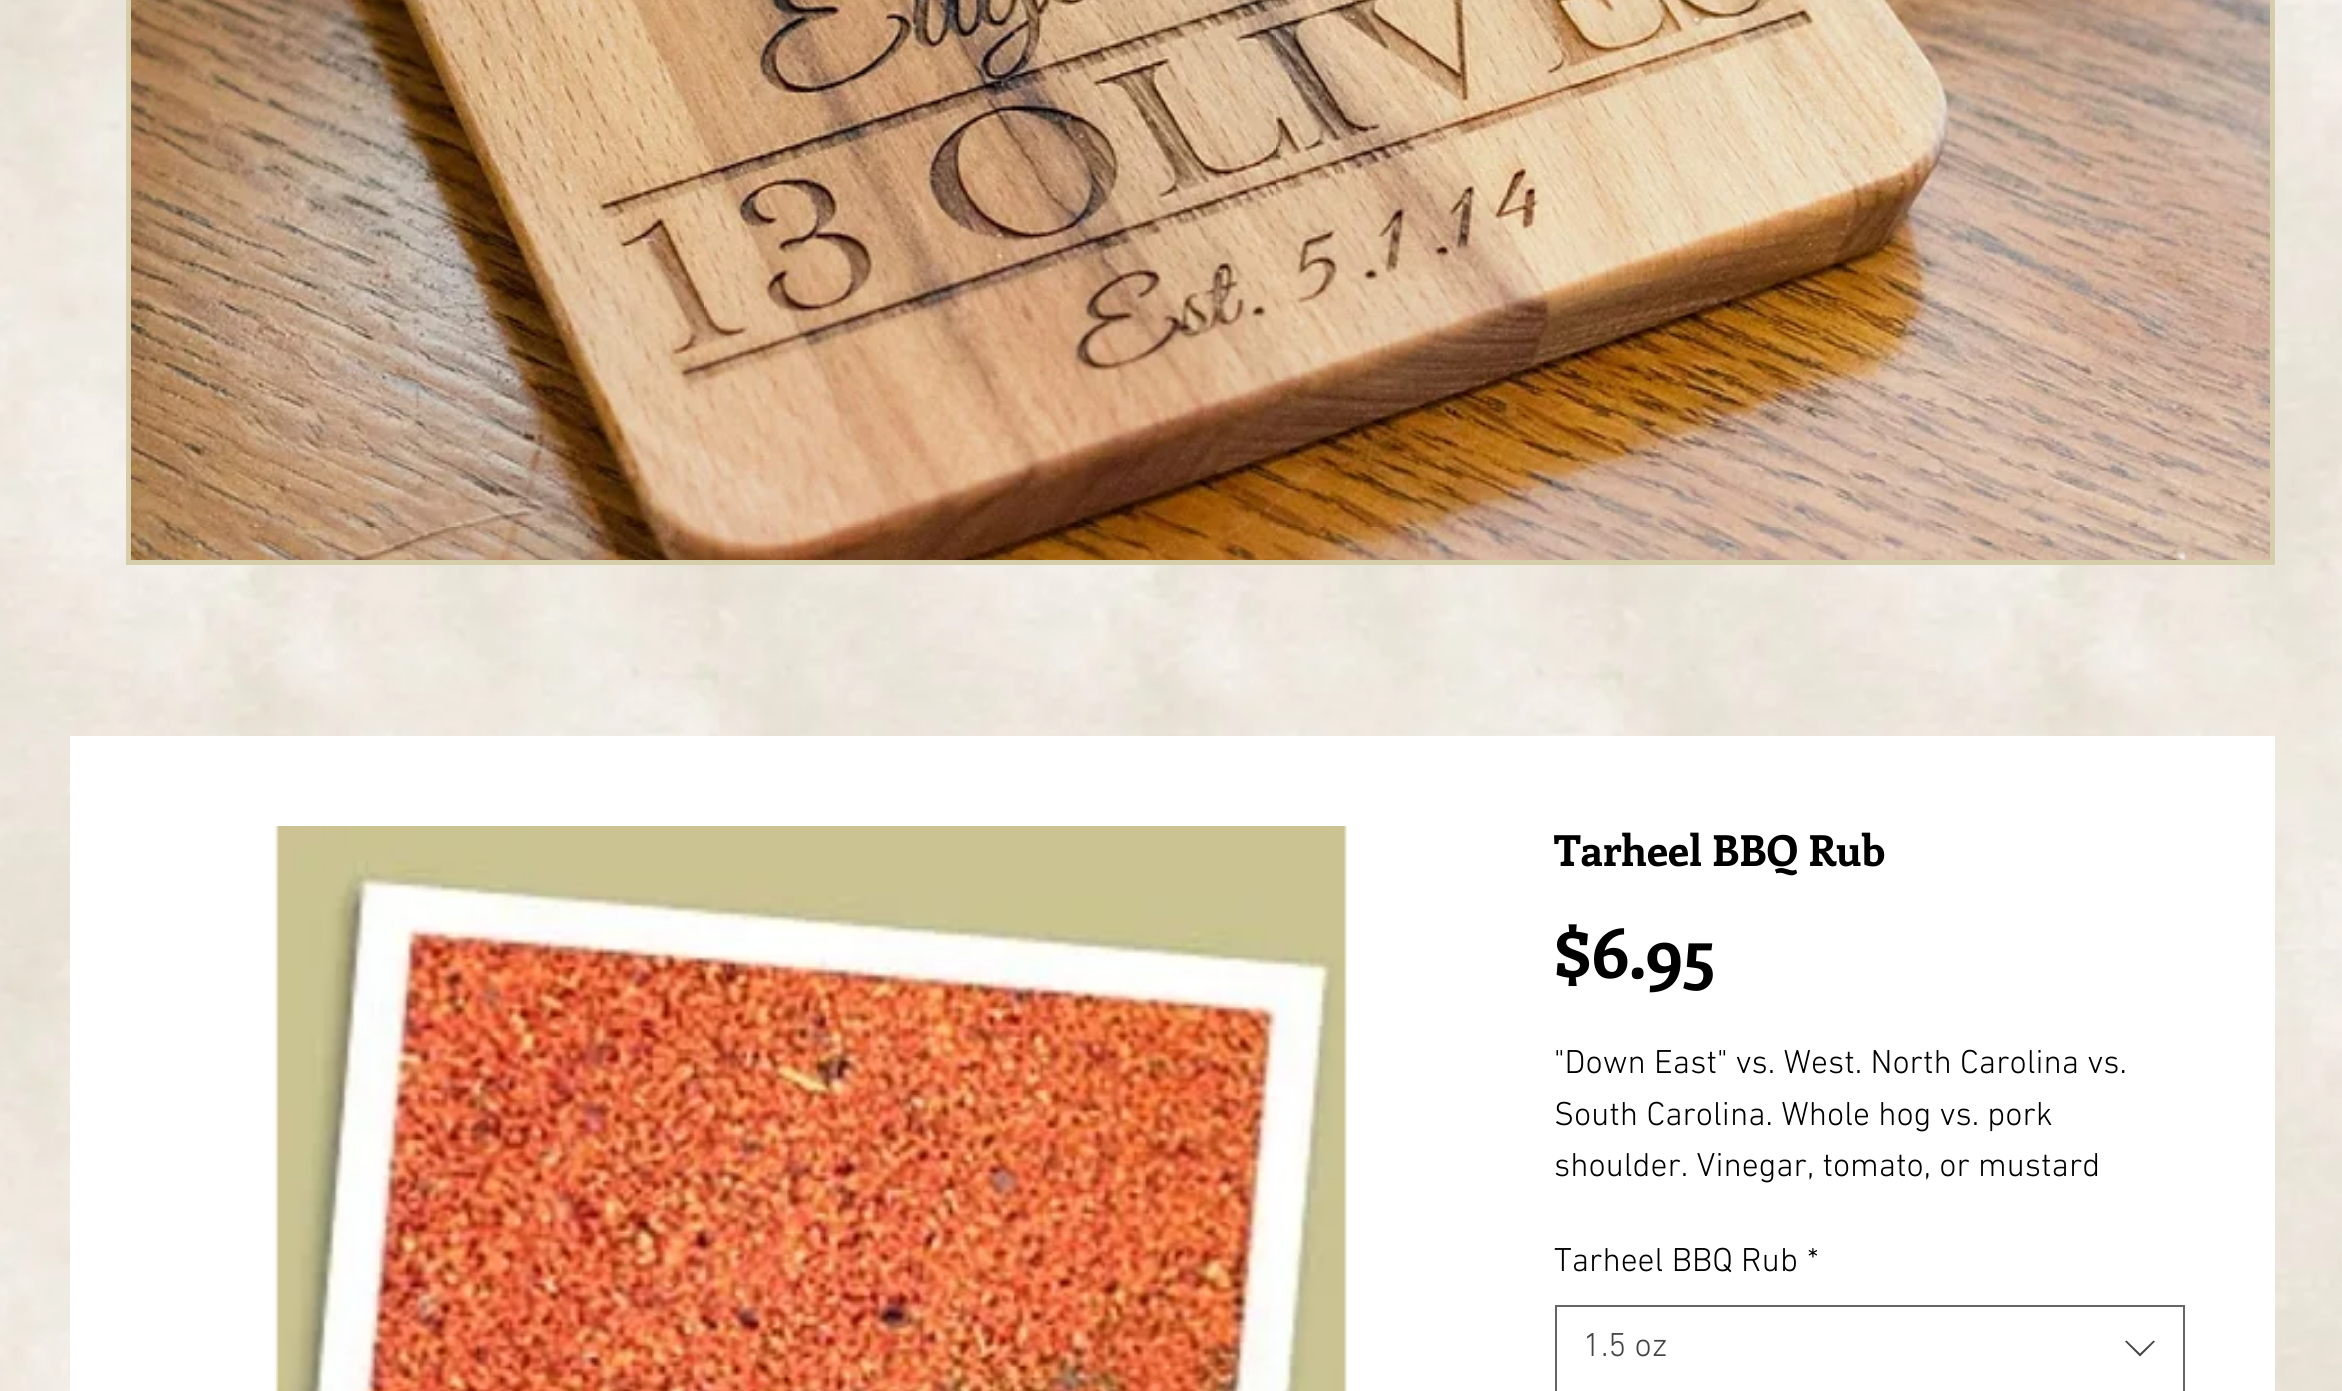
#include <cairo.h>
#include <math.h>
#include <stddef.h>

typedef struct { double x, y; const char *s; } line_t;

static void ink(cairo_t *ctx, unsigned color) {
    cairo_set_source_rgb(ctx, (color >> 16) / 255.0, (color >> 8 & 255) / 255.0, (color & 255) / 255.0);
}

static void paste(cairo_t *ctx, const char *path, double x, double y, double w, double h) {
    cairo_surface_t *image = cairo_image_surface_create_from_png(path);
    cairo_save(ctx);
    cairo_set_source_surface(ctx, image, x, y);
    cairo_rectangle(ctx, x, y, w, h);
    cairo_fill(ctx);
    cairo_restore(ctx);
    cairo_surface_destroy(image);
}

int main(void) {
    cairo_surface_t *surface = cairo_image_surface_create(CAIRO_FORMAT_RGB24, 2342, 1391);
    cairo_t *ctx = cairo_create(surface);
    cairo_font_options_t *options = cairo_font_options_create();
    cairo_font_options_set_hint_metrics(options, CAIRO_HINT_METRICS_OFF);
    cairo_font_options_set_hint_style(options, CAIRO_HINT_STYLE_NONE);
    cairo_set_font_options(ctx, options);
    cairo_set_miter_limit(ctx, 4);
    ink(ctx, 0xFFFFFF);
    cairo_paint(ctx);
    paste(ctx, "media/1.png", 0, 0, 2342, 1391);
    paste(ctx, "media/2.png", 131, 0, 2139, 560);
    cairo_rectangle(ctx, 128.5, -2.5, 2144, 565);
    ink(ctx, 0xD6CDAB);
    cairo_set_line_width(ctx, 5);
    cairo_stroke(ctx);
    ink(ctx, 0xFFFFFF);
    cairo_rectangle(ctx, 70, 736, 2205, 655);
    cairo_fill(ctx);
    paste(ctx, "media/3.png", 274, 826, 1073, 565);
    cairo_select_font_face(ctx, "Enriqueta", CAIRO_FONT_SLANT_NORMAL, CAIRO_FONT_WEIGHT_BOLD);
    cairo_set_font_size(ctx, 42.75);
    ink(ctx, 0x000000);
    cairo_move_to(ctx, 1554, 866);
    cairo_show_text(ctx, "Tarheel BBQ Rub");
    cairo_set_font_size(ctx, 67.5);
    cairo_move_to(ctx, 1554, 978);
    cairo_show_text(ctx, "$6.95");
    cairo_select_font_face(ctx, "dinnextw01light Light", CAIRO_FONT_SLANT_NORMAL, CAIRO_FONT_WEIGHT_NORMAL);
    cairo_set_font_size(ctx, 33.75);
    {
        static const line_t items[] = {
            {1554, 1073, "\"Down East\" vs. West. North Carolina vs."},
            {1554, 1125, "South Carolina. Whole hog vs. pork"},
            {1554, 1176, "shoulder. Vinegar, tomato, or mustard"},
            {1554, 1271, "Tarheel BBQ Rub"},
            {1807, 1271, "*"},
        };
        for (size_t i = 0; i < sizeof items / sizeof *items; i++) {
            cairo_move_to(ctx, items[i].x, items[i].y);
            cairo_show_text(ctx, items[i].s);
        }
    }
    cairo_rectangle(ctx, 1556, 1306, 628, 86);
    ink(ctx, 0x666666);
    cairo_set_line_width(ctx, 2);
    cairo_stroke(ctx);
    ink(ctx, 0x444444);
    cairo_move_to(ctx, 1583, 1356);
    cairo_show_text(ctx, "1.5 oz");
    cairo_set_fill_rule(ctx, CAIRO_FILL_RULE_EVEN_ODD);
    cairo_new_path(ctx);
    cairo_move_to(ctx, 2153.5, 1340.5);
    cairo_line_to(ctx, 2155, 1341.5);
    cairo_line_to(ctx, 2140, 1356.5);
    cairo_line_to(ctx, 2125, 1341.5);
    cairo_line_to(ctx, 2126.5, 1340.5);
    cairo_line_to(ctx, 2140, 1353.5);
    cairo_close_path(ctx);
    cairo_fill(ctx);
    cairo_surface_write_to_png(surface, "image.png");
    cairo_font_options_destroy(options);
    cairo_destroy(ctx);
    cairo_surface_destroy(surface);
    return 0;
}
